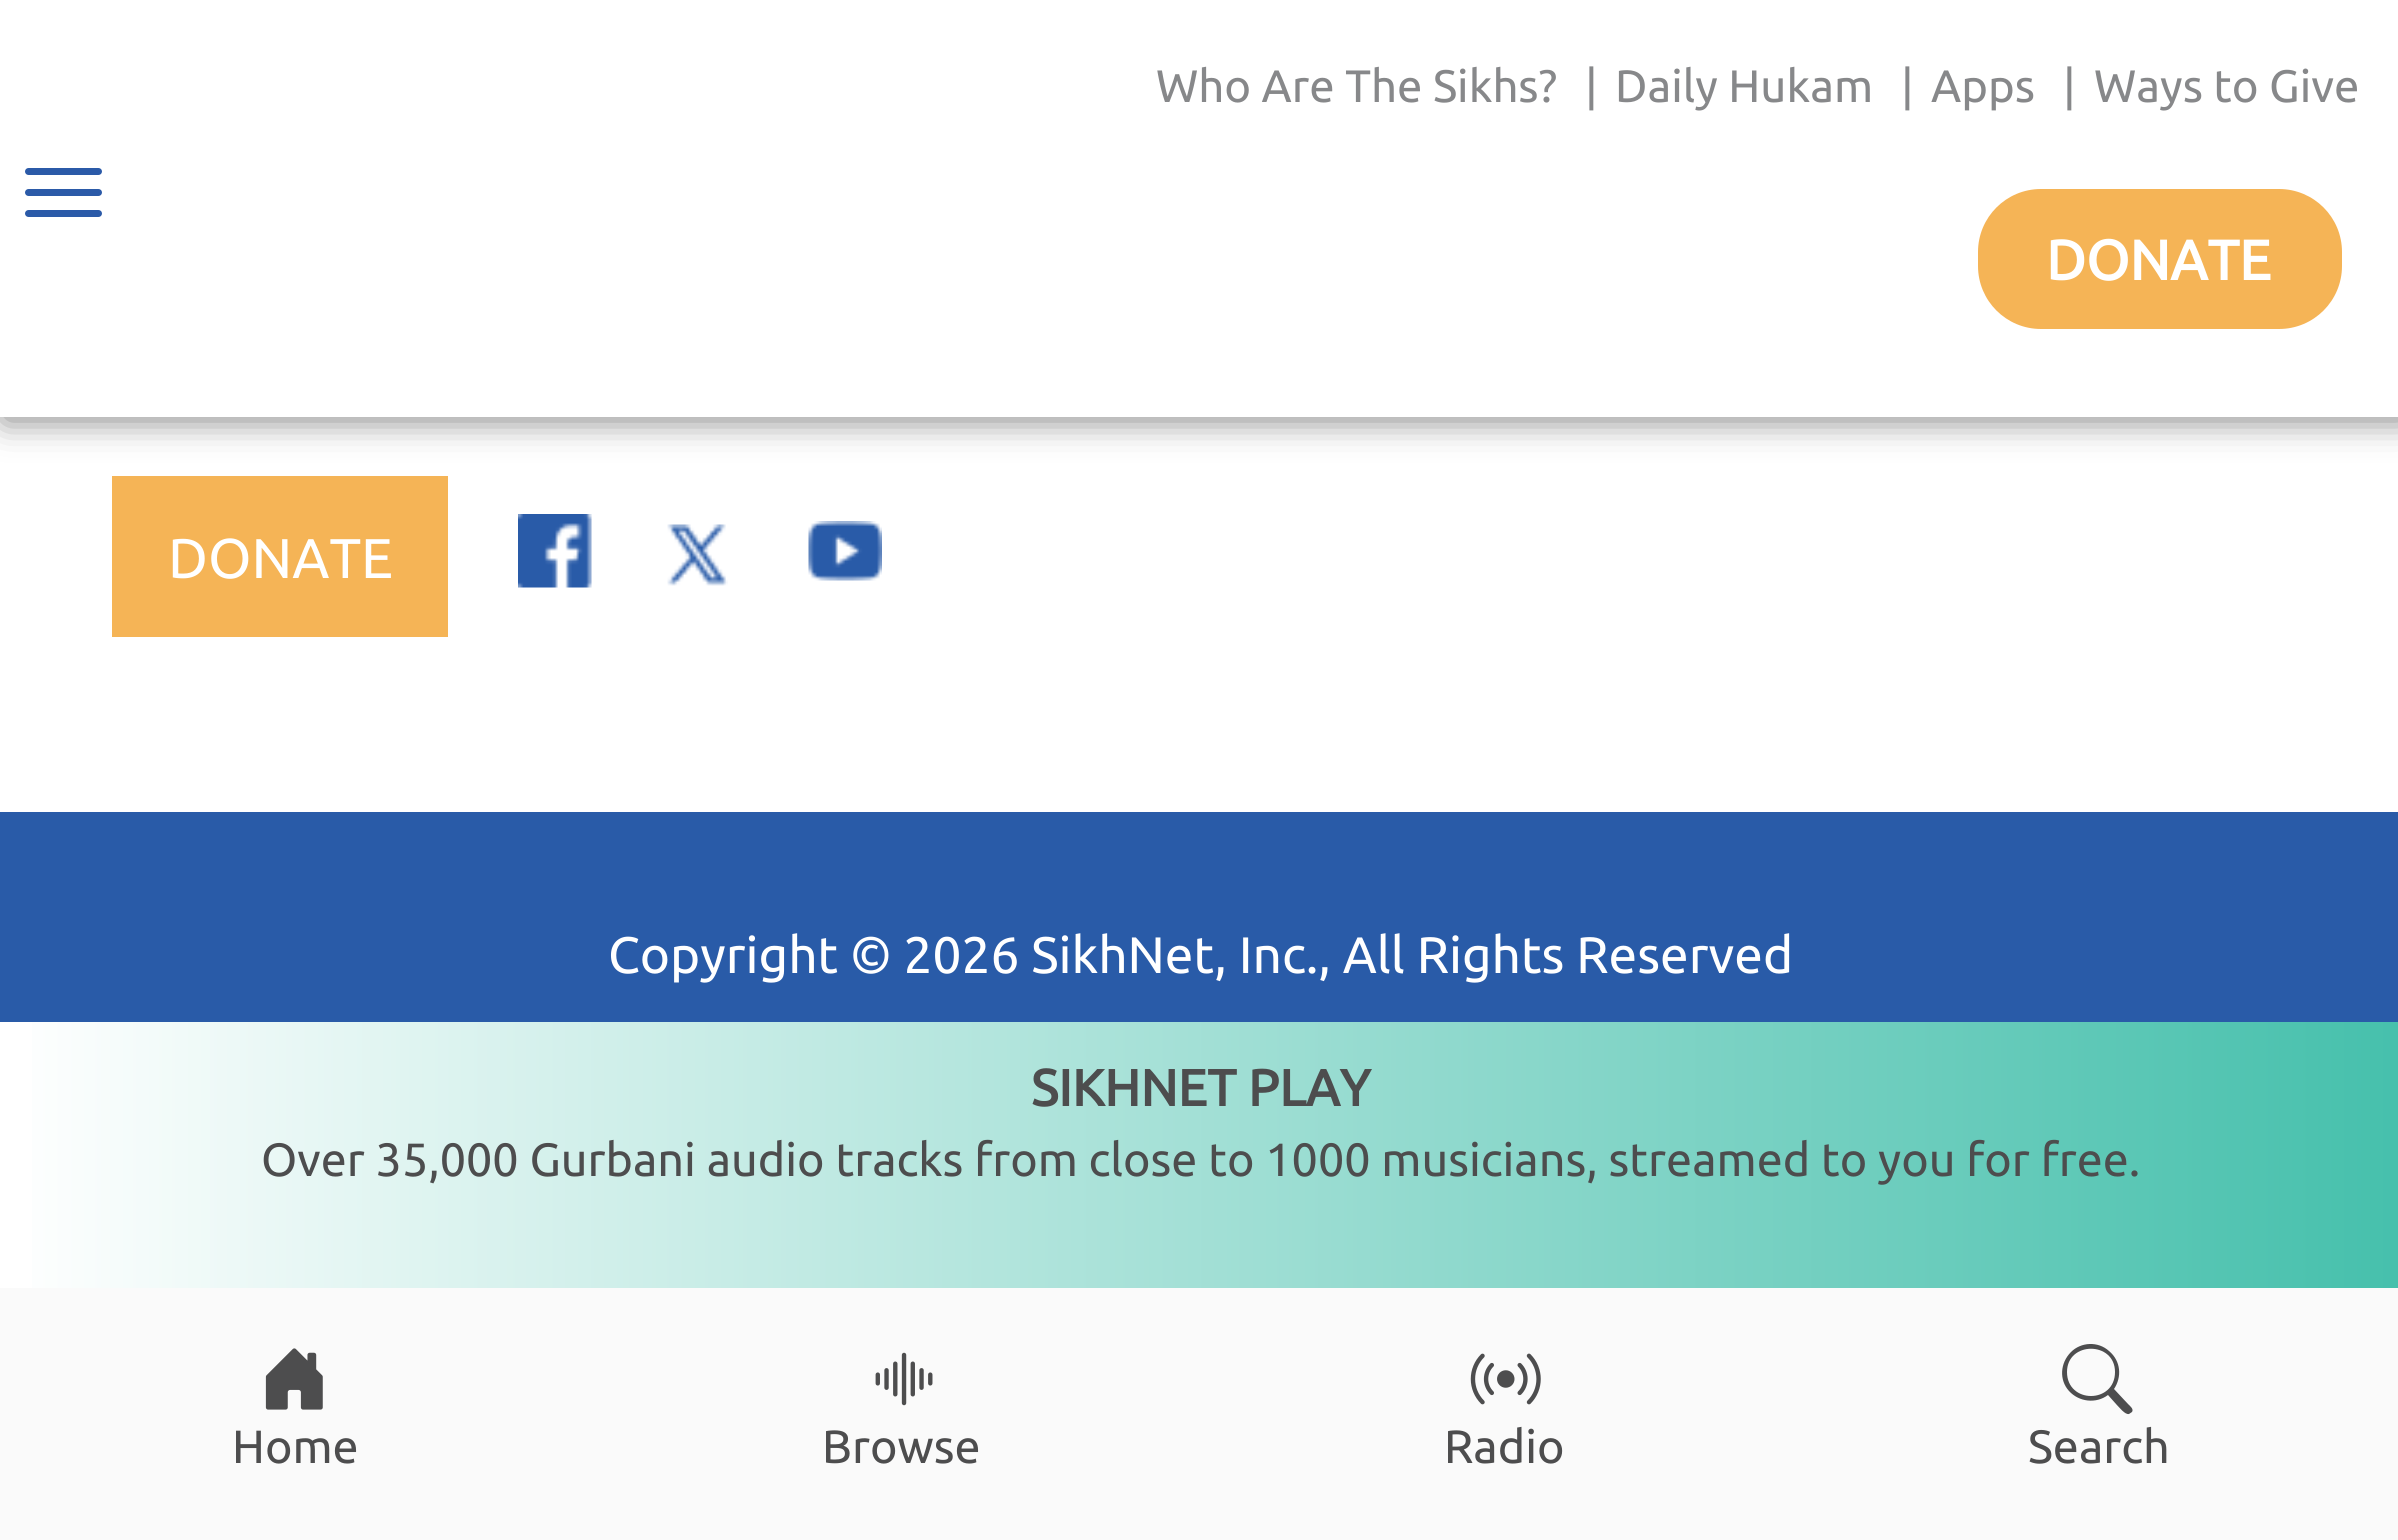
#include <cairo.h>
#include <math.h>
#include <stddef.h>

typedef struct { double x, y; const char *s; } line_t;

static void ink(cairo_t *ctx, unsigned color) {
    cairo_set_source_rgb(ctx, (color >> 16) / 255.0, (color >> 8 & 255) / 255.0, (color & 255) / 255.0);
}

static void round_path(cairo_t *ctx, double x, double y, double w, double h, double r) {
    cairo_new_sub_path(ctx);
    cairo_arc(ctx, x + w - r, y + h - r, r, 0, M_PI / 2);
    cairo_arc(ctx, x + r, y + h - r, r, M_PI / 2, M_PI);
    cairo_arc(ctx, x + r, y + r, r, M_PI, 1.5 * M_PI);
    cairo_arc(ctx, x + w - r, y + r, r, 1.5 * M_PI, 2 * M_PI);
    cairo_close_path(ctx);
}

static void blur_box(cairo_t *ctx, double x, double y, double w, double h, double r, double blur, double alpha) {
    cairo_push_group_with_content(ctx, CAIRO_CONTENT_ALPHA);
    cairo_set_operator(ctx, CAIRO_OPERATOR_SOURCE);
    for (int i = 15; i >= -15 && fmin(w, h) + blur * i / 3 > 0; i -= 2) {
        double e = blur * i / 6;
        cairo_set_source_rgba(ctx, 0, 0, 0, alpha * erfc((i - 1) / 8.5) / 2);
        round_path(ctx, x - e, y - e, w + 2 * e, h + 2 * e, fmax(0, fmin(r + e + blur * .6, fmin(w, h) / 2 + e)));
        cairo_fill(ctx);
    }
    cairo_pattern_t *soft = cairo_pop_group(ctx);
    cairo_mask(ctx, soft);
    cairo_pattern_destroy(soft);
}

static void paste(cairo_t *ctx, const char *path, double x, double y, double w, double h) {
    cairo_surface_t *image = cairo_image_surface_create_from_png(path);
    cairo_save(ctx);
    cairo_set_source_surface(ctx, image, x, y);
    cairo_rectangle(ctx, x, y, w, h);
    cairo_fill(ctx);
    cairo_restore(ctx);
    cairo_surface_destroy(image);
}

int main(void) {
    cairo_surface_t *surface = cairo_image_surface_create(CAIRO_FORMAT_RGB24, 2398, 1540);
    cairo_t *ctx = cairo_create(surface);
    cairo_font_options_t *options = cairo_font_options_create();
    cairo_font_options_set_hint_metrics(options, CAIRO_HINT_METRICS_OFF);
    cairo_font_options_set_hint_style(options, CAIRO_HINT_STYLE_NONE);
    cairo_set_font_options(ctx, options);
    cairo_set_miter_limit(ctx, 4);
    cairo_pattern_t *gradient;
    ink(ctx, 0xFFFFFF);
    cairo_paint(ctx);
    ink(ctx, 0x808080);
    blur_box(ctx, 4, 4, 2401, 416, 0, 17.5, 1);
    ink(ctx, 0xFFFFFF);
    cairo_rectangle(ctx, 0, 0, 2398, 417);
    cairo_fill(ctx);
    cairo_select_font_face(ctx, "Ubuntu", CAIRO_FONT_SLANT_NORMAL, CAIRO_FONT_WEIGHT_NORMAL);
    cairo_set_font_size(ctx, 45.5);
    ink(ctx, 0x87888A);
    {
        static const line_t items[] = {
            {1156, 102, "Who Are The Sikhs?"},
            {1585, 102, "|"},
            {1615, 102, "Daily Hukam"},
            {1901, 102, "|"},
            {1931, 102, "Apps"},
            {2063, 102, "|"},
            {2094, 102, "Ways to Give"},
        };
        for (size_t i = 0; i < sizeof items / sizeof *items; i++) {
            cairo_move_to(ctx, items[i].x, items[i].y);
            cairo_show_text(ctx, items[i].s);
        }
    }
    ink(ctx, 0x2B5AA8);
    round_path(ctx, 25, 168, 77, 7, 3.5);
    cairo_fill(ctx);
    round_path(ctx, 25, 189, 77, 7, 3.5);
    cairo_fill(ctx);
    round_path(ctx, 25, 210, 77, 7, 3.5);
    cairo_fill(ctx);
    ink(ctx, 0xF5B456);
    round_path(ctx, 1978, 189, 364, 140, 63);
    cairo_fill(ctx);
    cairo_select_font_face(ctx, "Ubuntu", CAIRO_FONT_SLANT_NORMAL, CAIRO_FONT_WEIGHT_BOLD);
    cairo_set_font_size(ctx, 56);
    ink(ctx, 0xFFFFFF);
    cairo_move_to(ctx, 2046, 280);
    cairo_show_text(ctx, "DONATE");
    ink(ctx, 0xF5B456);
    cairo_rectangle(ctx, 112, 476, 336, 161);
    cairo_fill(ctx);
    cairo_select_font_face(ctx, "Ubuntu", CAIRO_FONT_SLANT_NORMAL, CAIRO_FONT_WEIGHT_NORMAL);
    ink(ctx, 0xFFFFFF);
    cairo_move_to(ctx, 168, 578);
    cairo_show_text(ctx, "DONATE");
    paste(ctx, "media/1.png", 518, 514, 74, 74);
    paste(ctx, "media/2.png", 667, 524, 61, 62);
    paste(ctx, "media/3.png", 808, 521, 74, 60);
    ink(ctx, 0x295BA8);
    cairo_rectangle(ctx, 0, 812, 2398, 210);
    cairo_fill(ctx);
    cairo_set_font_size(ctx, 51.3);
    ink(ctx, 0xFFFFFF);
    cairo_move_to(ctx, 608, 973);
    cairo_show_text(ctx, "Copyright © 2026 SikhNet, Inc., All Rights Reserved");
    gradient = cairo_pattern_create_linear(0, 1281, 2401, 1281);
    cairo_pattern_add_color_stop_rgba(gradient, 0, 1, 1, 1, 1);
    cairo_pattern_add_color_stop_rgba(gradient, 1, 0.275, 0.753, 0.675, 1);
    cairo_set_source(ctx, gradient);
    cairo_pattern_destroy(gradient);
    cairo_rectangle(ctx, 32, 1022, 2366, 266);
    cairo_fill(ctx);
    cairo_select_font_face(ctx, "Ubuntu", CAIRO_FONT_SLANT_NORMAL, CAIRO_FONT_WEIGHT_BOLD);
    ink(ctx, 0x4D4D4E);
    cairo_move_to(ctx, 1031, 1106);
    cairo_show_text(ctx, "SIKHNET PLAY");
    cairo_select_font_face(ctx, "Ubuntu", CAIRO_FONT_SLANT_NORMAL, CAIRO_FONT_WEIGHT_NORMAL);
    cairo_set_font_size(ctx, 46.65);
    cairo_move_to(ctx, 261, 1176);
    cairo_show_text(ctx, "Over 35,000 Gurbani audio tracks from close to 1000 musicians, streamed to you for free.");
    ink(ctx, 0xFAFAFA);
    cairo_rectangle(ctx, 0, 1288, 2398, 252);
    cairo_fill(ctx);
    paste(ctx, "media/4.png", 265, 1348, 58, 62);
    ink(ctx, 0x4D4D4E);
    cairo_move_to(ctx, 232, 1463);
    cairo_show_text(ctx, "Home");
    paste(ctx, "media/5.png", 875, 1352, 58, 54);
    cairo_move_to(ctx, 822, 1463);
    cairo_show_text(ctx, "Browse");
    paste(ctx, "media/6.png", 1470, 1353, 71, 52);
    cairo_move_to(ctx, 1444, 1463);
    cairo_show_text(ctx, "Radio");
    cairo_new_path(ctx);
    cairo_move_to(ctx, 2114, 1389);
    cairo_curve_to(ctx, 2122, 1377, 2121, 1361, 2109, 1351);
    cairo_curve_to(ctx, 2098, 1341, 2081, 1342, 2071, 1352);
    cairo_curve_to(ctx, 2060, 1363, 2059, 1380, 2069, 1391);
    cairo_curve_to(ctx, 2079, 1402, 2096, 1404, 2108, 1395);
    cairo_line_to(ctx, 2116, 1404);
    cairo_curve_to(ctx, 2119, 1407, 2125, 1415, 2129, 1414);
    cairo_line_to(ctx, 2132, 1412);
    cairo_curve_to(ctx, 2134, 1409, 2130, 1406, 2128, 1404);
    cairo_close_path(ctx);
    cairo_move_to(ctx, 2115, 1372);
    cairo_curve_to(ctx, 2115, 1404, 2067, 1404, 2067, 1372);
    cairo_curve_to(ctx, 2067, 1341, 2115, 1341, 2115, 1372);
    cairo_fill(ctx);
    cairo_move_to(ctx, 2028, 1463);
    cairo_show_text(ctx, "Search");
    cairo_surface_write_to_png(surface, "image.png");
    cairo_font_options_destroy(options);
    cairo_destroy(ctx);
    cairo_surface_destroy(surface);
    return 0;
}
